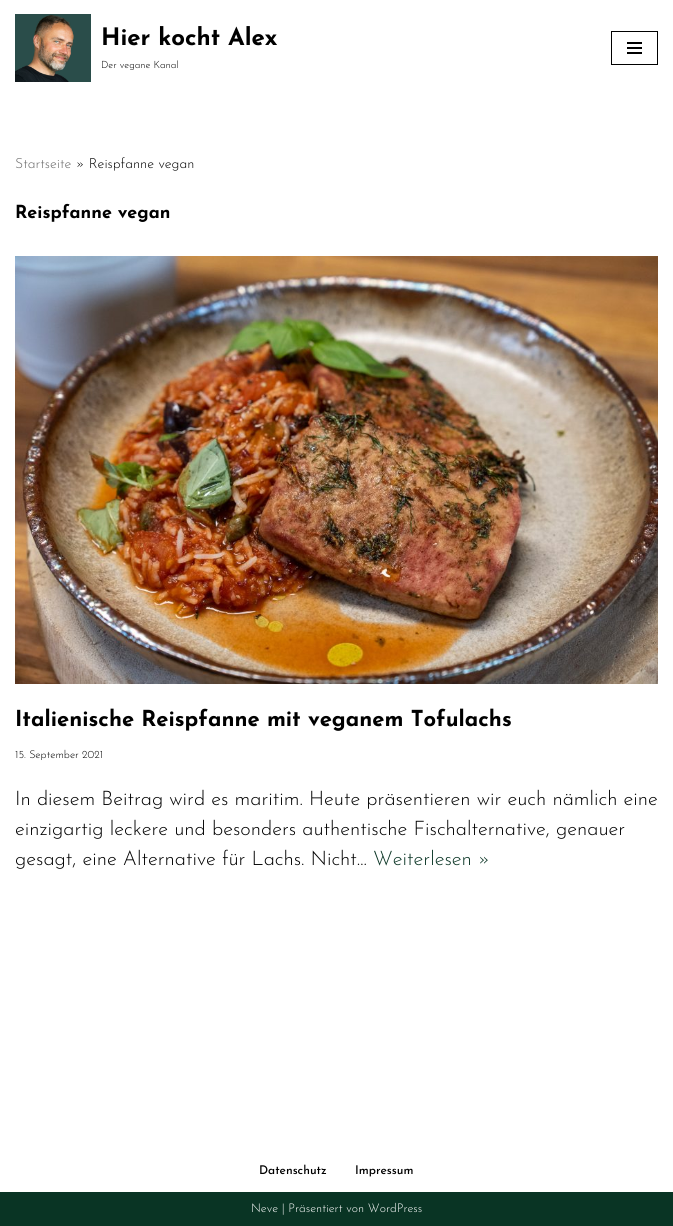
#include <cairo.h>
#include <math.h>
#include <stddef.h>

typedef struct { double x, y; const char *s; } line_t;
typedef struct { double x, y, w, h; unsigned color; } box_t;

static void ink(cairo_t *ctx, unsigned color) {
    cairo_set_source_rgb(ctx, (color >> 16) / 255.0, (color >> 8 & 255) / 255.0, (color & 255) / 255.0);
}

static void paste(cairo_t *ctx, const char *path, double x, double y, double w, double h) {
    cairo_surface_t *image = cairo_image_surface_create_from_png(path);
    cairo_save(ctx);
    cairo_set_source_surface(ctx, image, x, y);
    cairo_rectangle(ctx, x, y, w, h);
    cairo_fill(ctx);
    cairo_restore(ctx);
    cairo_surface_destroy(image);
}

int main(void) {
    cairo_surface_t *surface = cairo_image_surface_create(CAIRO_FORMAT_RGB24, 673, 1226);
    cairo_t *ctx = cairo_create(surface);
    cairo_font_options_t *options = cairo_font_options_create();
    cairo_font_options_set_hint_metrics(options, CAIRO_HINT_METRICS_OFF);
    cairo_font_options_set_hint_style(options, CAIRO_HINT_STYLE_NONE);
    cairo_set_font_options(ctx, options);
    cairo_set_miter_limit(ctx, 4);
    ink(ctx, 0xFFFFFF);
    cairo_paint(ctx);
    paste(ctx, "media/1.png", 15, 14, 76, 68);
    cairo_select_font_face(ctx, "Josefin Sans", CAIRO_FONT_SLANT_NORMAL, CAIRO_FONT_WEIGHT_BOLD);
    cairo_set_font_size(ctx, 24);
    ink(ctx, 0x000000);
    cairo_move_to(ctx, 101, 45);
    cairo_show_text(ctx, "Hier kocht Alex");
    cairo_select_font_face(ctx, "Josefin Sans Light", CAIRO_FONT_SLANT_NORMAL, CAIRO_FONT_WEIGHT_NORMAL);
    cairo_set_font_size(ctx, 10);
    cairo_move_to(ctx, 101, 68);
    cairo_show_text(ctx, "Der vegane Kanal");
    cairo_rectangle(ctx, 611.5, 31.5, 46, 33);
    cairo_set_line_width(ctx, 1);
    cairo_stroke(ctx);
    {
        static const box_t items[] = {
            {627, 42, 15, 2, 0x000000},
            {627, 47, 15, 2, 0x000000},
            {627, 52, 15, 2, 0x000000},
        };
        for (size_t i = 0; i < sizeof items / sizeof *items; i++) {
            ink(ctx, items[i].color);
            cairo_rectangle(ctx, items[i].x, items[i].y, items[i].w, items[i].h);
            cairo_fill(ctx);
        }
    }
    cairo_set_font_size(ctx, 14);
    ink(ctx, 0x676767);
    cairo_move_to(ctx, 15, 168);
    cairo_show_text(ctx, "Startseite");
    ink(ctx, 0x000000);
    cairo_move_to(ctx, 76, 168);
    cairo_show_text(ctx, "» Reispfanne vegan");
    cairo_select_font_face(ctx, "Josefin Sans", CAIRO_FONT_SLANT_NORMAL, CAIRO_FONT_WEIGHT_BOLD);
    cairo_set_font_size(ctx, 18);
    cairo_move_to(ctx, 15, 218);
    cairo_show_text(ctx, "Reispfanne vegan");
    paste(ctx, "media/2.png", 15, 256, 643, 428);
    cairo_set_font_size(ctx, 22);
    cairo_move_to(ctx, 15, 726);
    cairo_show_text(ctx, "Italienische Reispfanne mit veganem Tofulachs");
    cairo_select_font_face(ctx, "Josefin Sans Light", CAIRO_FONT_SLANT_NORMAL, CAIRO_FONT_WEIGHT_NORMAL);
    cairo_set_font_size(ctx, 10.75);
    cairo_move_to(ctx, 15, 758);
    cairo_show_text(ctx, "15. September 2021");
    cairo_set_font_size(ctx, 20);
    {
        static const line_t items[] = {
            {15, 805, "In diesem Beitrag wird es maritim. Heute präsentieren wir euch nämlich eine"},
            {15, 835, "einzigartig leckere und besonders authentische Fischalternative, genauer"},
            {15, 865, "gesagt, eine Alternative für Lachs. Nicht…"},
        };
        for (size_t i = 0; i < sizeof items / sizeof *items; i++) {
            cairo_move_to(ctx, items[i].x, items[i].y);
            cairo_show_text(ctx, items[i].s);
        }
    }
    ink(ctx, 0x093424);
    cairo_move_to(ctx, 373, 865);
    cairo_show_text(ctx, "Weiterlesen »");
    cairo_select_font_face(ctx, "Josefin Sans Medium", CAIRO_FONT_SLANT_NORMAL, CAIRO_FONT_WEIGHT_NORMAL);
    cairo_set_font_size(ctx, 12);
    ink(ctx, 0x000000);
    cairo_move_to(ctx, 259, 1174);
    cairo_show_text(ctx, "Datenschutz");
    cairo_move_to(ctx, 355, 1174);
    cairo_show_text(ctx, "Impressum");
    ink(ctx, 0x093424);
    cairo_rectangle(ctx, 0, 1192, 673, 34);
    cairo_fill(ctx);
    cairo_select_font_face(ctx, "Josefin Sans Light", CAIRO_FONT_SLANT_NORMAL, CAIRO_FONT_WEIGHT_NORMAL);
    ink(ctx, 0xFFFFFF);
    cairo_move_to(ctx, 251, 1212);
    cairo_show_text(ctx, "Neve | Präsentiert von WordPress");
    cairo_surface_write_to_png(surface, "image.png");
    cairo_font_options_destroy(options);
    cairo_destroy(ctx);
    cairo_surface_destroy(surface);
    return 0;
}
